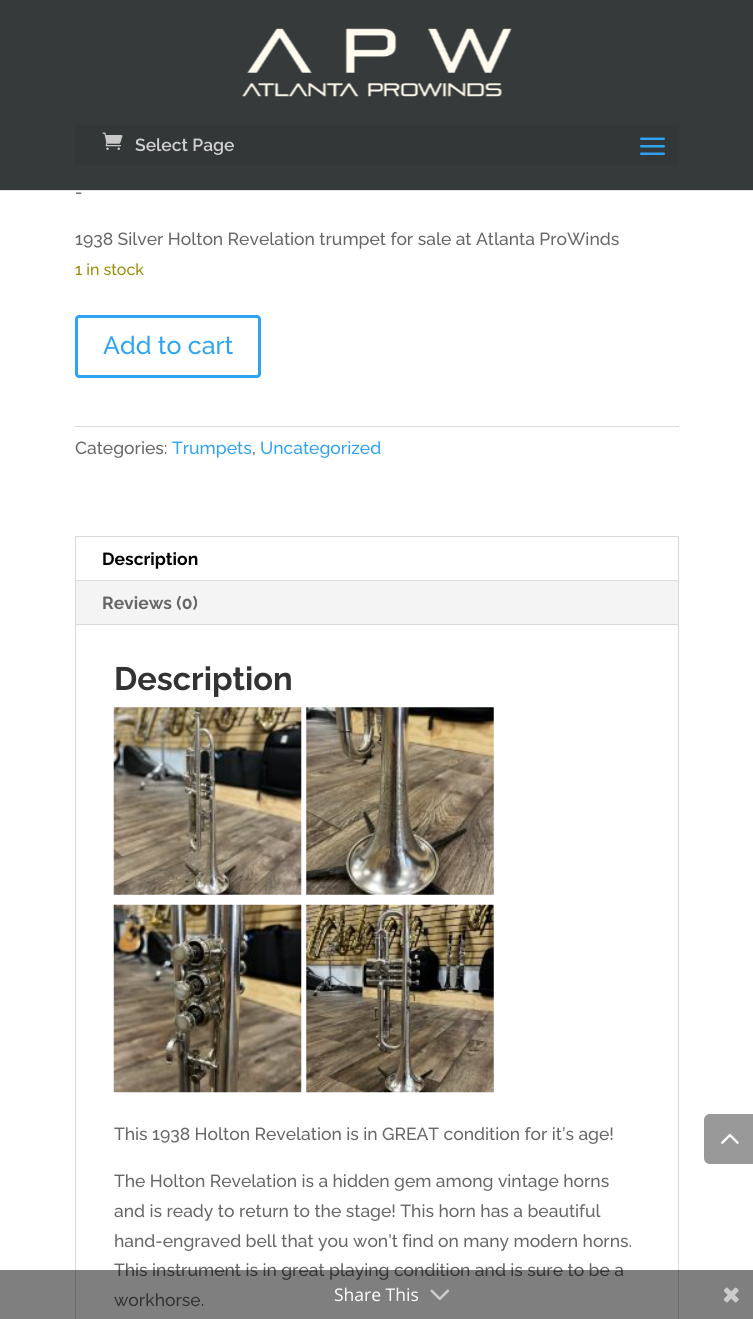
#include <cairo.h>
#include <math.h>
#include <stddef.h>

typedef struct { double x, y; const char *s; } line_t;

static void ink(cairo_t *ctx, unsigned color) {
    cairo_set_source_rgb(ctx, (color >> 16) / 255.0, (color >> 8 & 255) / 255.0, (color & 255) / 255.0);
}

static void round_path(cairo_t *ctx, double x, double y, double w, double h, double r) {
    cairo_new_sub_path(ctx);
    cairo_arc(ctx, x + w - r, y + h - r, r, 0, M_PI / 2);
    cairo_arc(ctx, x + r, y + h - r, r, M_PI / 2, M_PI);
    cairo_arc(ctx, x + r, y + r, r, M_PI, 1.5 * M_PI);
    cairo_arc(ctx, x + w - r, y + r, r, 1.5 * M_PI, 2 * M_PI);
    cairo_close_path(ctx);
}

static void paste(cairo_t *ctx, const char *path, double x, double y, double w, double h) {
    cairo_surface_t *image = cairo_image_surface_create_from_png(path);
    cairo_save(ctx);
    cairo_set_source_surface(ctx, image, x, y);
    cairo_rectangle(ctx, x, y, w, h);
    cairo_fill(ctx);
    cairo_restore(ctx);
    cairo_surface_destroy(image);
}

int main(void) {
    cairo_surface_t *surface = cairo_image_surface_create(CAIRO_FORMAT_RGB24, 753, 1319);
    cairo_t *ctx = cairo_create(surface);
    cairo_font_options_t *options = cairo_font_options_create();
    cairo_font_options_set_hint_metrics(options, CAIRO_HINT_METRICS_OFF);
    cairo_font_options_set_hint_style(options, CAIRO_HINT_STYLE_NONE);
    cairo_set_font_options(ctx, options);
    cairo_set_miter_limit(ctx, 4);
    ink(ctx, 0xFFFFFF);
    cairo_paint(ctx);
    ink(ctx, 0xE6E6E6);
    cairo_new_path(ctx);
    cairo_move_to(ctx, 0, 190);
    cairo_line_to(ctx, 0, 191);
    cairo_line_to(ctx, 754, 191);
    cairo_line_to(ctx, 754, 1);
    cairo_line_to(ctx, 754, 190);
    cairo_close_path(ctx);
    cairo_fill(ctx);
    ink(ctx, 0x363A3B);
    cairo_rectangle(ctx, 0, 0, 753, 190);
    cairo_fill(ctx);
    paste(ctx, "media/1.png", 242, 28, 270, 69);
    paste(ctx, "media/2.png", 102, 132, 21, 18);
    cairo_set_source_rgba(ctx, 0, 0, 0, 0.05);
    cairo_rectangle(ctx, 75, 125, 604, 40);
    cairo_fill(ctx);
    cairo_select_font_face(ctx, "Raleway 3 Thin", CAIRO_FONT_SLANT_NORMAL, CAIRO_FONT_WEIGHT_NORMAL);
    cairo_set_font_size(ctx, 17.5);
    ink(ctx, 0xD1D1D1);
    cairo_move_to(ctx, 135, 151);
    cairo_show_text(ctx, "Select Page");
    paste(ctx, "media/3.png", 640, 137, 25, 18);
    cairo_select_font_face(ctx, "Raleway Thin", CAIRO_FONT_SLANT_NORMAL, CAIRO_FONT_WEIGHT_NORMAL);
    ink(ctx, 0x666666);
    cairo_move_to(ctx, 75, 198);
    cairo_show_text(ctx, "-");
    cairo_move_to(ctx, 75, 245);
    cairo_show_text(ctx, "1938 Silver Holton Revelation trumpet for sale at Atlanta ProWinds");
    cairo_set_font_size(ctx, 16);
    ink(ctx, 0x958E09);
    cairo_move_to(ctx, 75, 275);
    cairo_show_text(ctx, "1 in stock");
    round_path(ctx, 76.5, 316.5, 183, 60, 2.5);
    ink(ctx, 0x2EA3F2);
    cairo_set_line_width(ctx, 3);
    cairo_stroke(ctx);
    cairo_set_font_size(ctx, 25);
    cairo_move_to(ctx, 103, 354);
    cairo_show_text(ctx, "Add to cart");
    ink(ctx, 0xDADADA);
    cairo_rectangle(ctx, 75, 426, 604, 1);
    cairo_fill(ctx);
    cairo_set_font_size(ctx, 17.5);
    ink(ctx, 0x666666);
    cairo_move_to(ctx, 75, 454);
    cairo_show_text(ctx, "Categories:");
    ink(ctx, 0x2EA3F2);
    cairo_move_to(ctx, 172, 454);
    cairo_show_text(ctx, "Trumpets");
    ink(ctx, 0x666666);
    cairo_move_to(ctx, 252, 454);
    cairo_show_text(ctx, ",");
    ink(ctx, 0x2EA3F2);
    cairo_move_to(ctx, 260, 454);
    cairo_show_text(ctx, "Uncategorized");
    cairo_rectangle(ctx, 75.5, 536.5, 603, 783);
    ink(ctx, 0xD9D9D9);
    cairo_set_line_width(ctx, 1);
    cairo_stroke(ctx);
    ink(ctx, 0xF4F4F4);
    cairo_rectangle(ctx, 76, 581, 602, 43);
    cairo_fill(ctx);
    ink(ctx, 0xE0DADF);
    cairo_rectangle(ctx, 76, 580, 602, 1);
    cairo_fill(ctx);
    cairo_select_font_face(ctx, "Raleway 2 Thin", CAIRO_FONT_SLANT_NORMAL, CAIRO_FONT_WEIGHT_NORMAL);
    ink(ctx, 0x000000);
    cairo_move_to(ctx, 102, 565);
    cairo_show_text(ctx, "Description");
    ink(ctx, 0x666666);
    cairo_move_to(ctx, 102, 609);
    cairo_show_text(ctx, "Reviews (0)");
    ink(ctx, 0xD9D9D9);
    cairo_rectangle(ctx, 76, 624, 602, 1);
    cairo_fill(ctx);
    cairo_set_font_size(ctx, 32.5);
    ink(ctx, 0x333333);
    cairo_move_to(ctx, 114, 690);
    cairo_show_text(ctx, "Description");
    paste(ctx, "media/4.png", 113, 707, 189, 188);
    paste(ctx, "media/5.png", 306, 707, 188, 188);
    paste(ctx, "media/6.png", 113, 904, 189, 189);
    paste(ctx, "media/7.png", 306, 904, 188, 189);
    cairo_select_font_face(ctx, "Raleway Thin", CAIRO_FONT_SLANT_NORMAL, CAIRO_FONT_WEIGHT_NORMAL);
    cairo_set_font_size(ctx, 17.5);
    ink(ctx, 0x666666);
    {
        static const line_t items[] = {
            {114, 1140, "This 1938 Holton Revelation is in GREAT condition for it’s age!"},
            {114, 1187, "The Holton Revelation is a hidden gem among vintage horns"},
            {114, 1217, "and is ready to return to the stage! This horn has a beautiful"},
            {114, 1247, "hand-engraved bell that you won’t find on many modern horns."},
            {114, 1276, "This instrument is in great playing condition and is sure to be a"},
            {114, 1306, "workhorse."},
        };
        for (size_t i = 0; i < sizeof items / sizeof *items; i++) {
            cairo_move_to(ctx, items[i].x, items[i].y);
            cairo_show_text(ctx, items[i].s);
        }
    }
    ink(ctx, 0x999999);
    cairo_new_path(ctx);
    cairo_move_to(ctx, 710, 1114);
    cairo_line_to(ctx, 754, 1114);
    cairo_line_to(ctx, 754, 1164);
    cairo_line_to(ctx, 710, 1164);
    cairo_curve_to(ctx, 706.5, 1164, 704, 1161.5, 704, 1158);
    cairo_line_to(ctx, 704, 1120);
    cairo_curve_to(ctx, 704, 1116.5, 706.5, 1114, 710, 1114);
    cairo_close_path(ctx);
    cairo_fill(ctx);
    paste(ctx, "media/8.png", 721, 1134, 18, 10);
    cairo_set_source_rgba(ctx, 0, 0, 0, 0.5);
    cairo_rectangle(ctx, 0, 1270, 753, 49);
    cairo_fill(ctx);
    cairo_select_font_face(ctx, "Open Sans", CAIRO_FONT_SLANT_NORMAL, CAIRO_FONT_WEIGHT_NORMAL);
    ink(ctx, 0xFFFFFF);
    cairo_move_to(ctx, 334, 1301);
    cairo_show_text(ctx, "Share This");
    paste(ctx, "media/9.png", 430, 1289, 20, 12);
    paste(ctx, "media/10.png", 723, 1287, 16, 16);
    cairo_surface_write_to_png(surface, "image.png");
    cairo_font_options_destroy(options);
    cairo_destroy(ctx);
    cairo_surface_destroy(surface);
    return 0;
}
